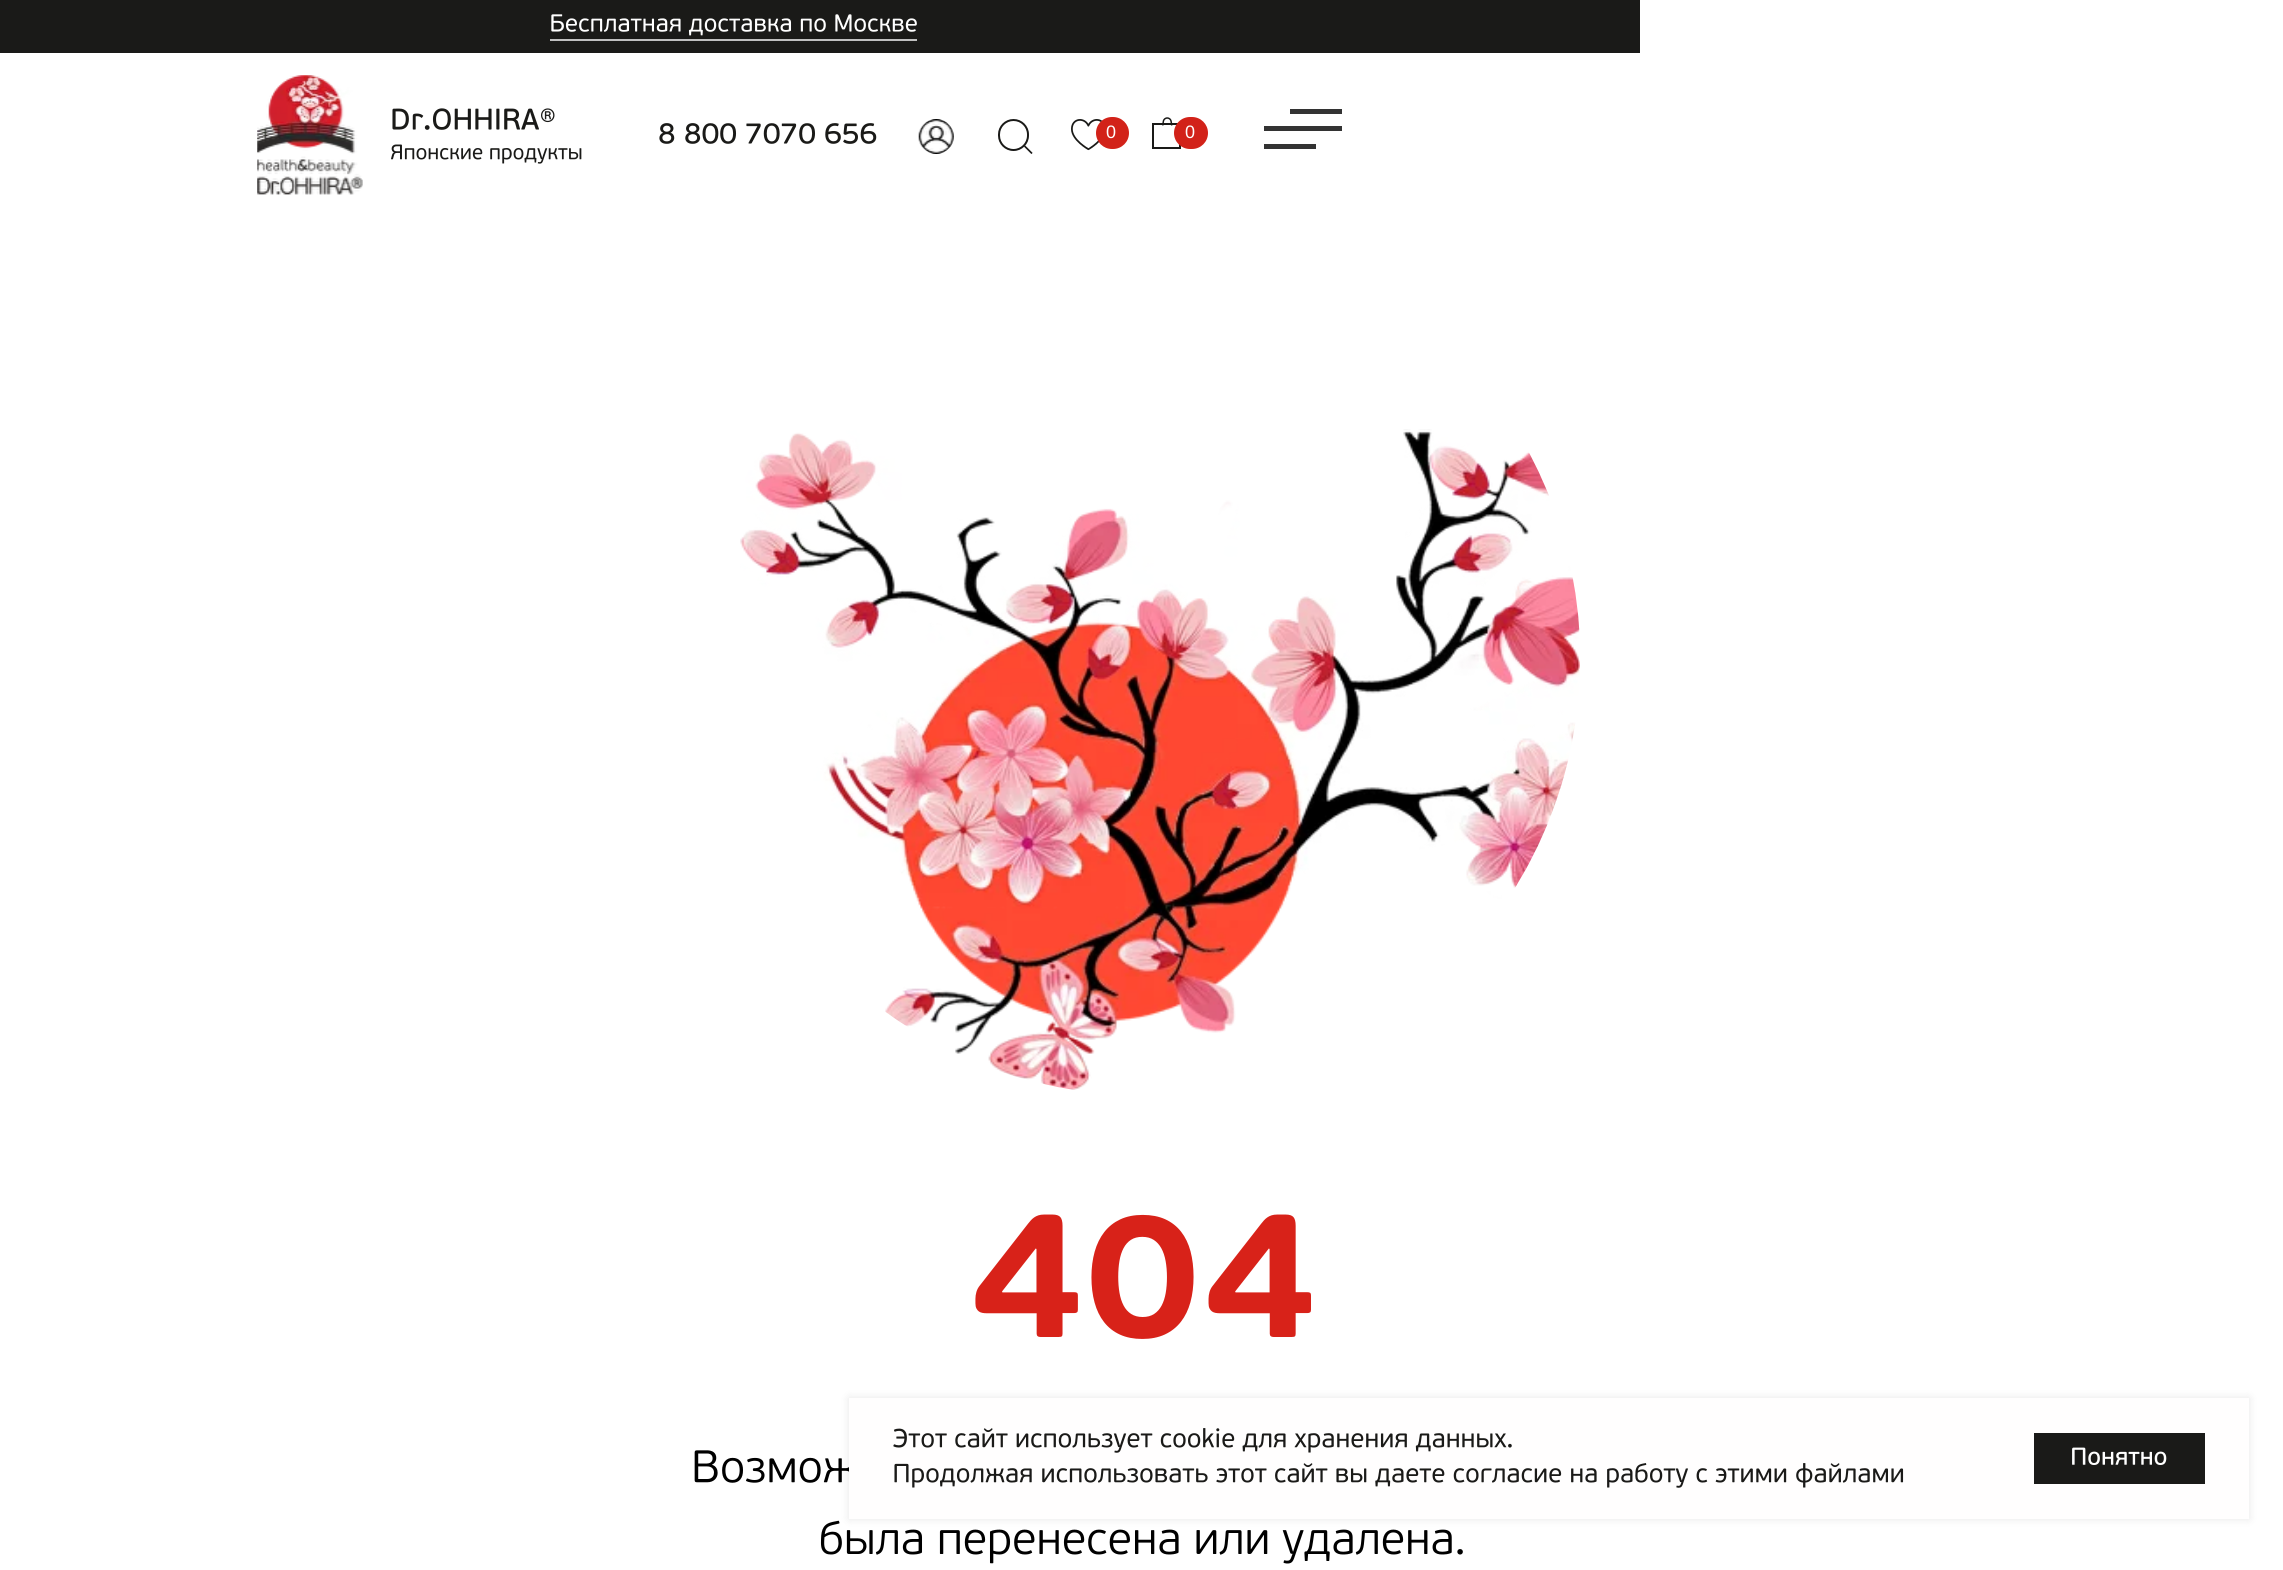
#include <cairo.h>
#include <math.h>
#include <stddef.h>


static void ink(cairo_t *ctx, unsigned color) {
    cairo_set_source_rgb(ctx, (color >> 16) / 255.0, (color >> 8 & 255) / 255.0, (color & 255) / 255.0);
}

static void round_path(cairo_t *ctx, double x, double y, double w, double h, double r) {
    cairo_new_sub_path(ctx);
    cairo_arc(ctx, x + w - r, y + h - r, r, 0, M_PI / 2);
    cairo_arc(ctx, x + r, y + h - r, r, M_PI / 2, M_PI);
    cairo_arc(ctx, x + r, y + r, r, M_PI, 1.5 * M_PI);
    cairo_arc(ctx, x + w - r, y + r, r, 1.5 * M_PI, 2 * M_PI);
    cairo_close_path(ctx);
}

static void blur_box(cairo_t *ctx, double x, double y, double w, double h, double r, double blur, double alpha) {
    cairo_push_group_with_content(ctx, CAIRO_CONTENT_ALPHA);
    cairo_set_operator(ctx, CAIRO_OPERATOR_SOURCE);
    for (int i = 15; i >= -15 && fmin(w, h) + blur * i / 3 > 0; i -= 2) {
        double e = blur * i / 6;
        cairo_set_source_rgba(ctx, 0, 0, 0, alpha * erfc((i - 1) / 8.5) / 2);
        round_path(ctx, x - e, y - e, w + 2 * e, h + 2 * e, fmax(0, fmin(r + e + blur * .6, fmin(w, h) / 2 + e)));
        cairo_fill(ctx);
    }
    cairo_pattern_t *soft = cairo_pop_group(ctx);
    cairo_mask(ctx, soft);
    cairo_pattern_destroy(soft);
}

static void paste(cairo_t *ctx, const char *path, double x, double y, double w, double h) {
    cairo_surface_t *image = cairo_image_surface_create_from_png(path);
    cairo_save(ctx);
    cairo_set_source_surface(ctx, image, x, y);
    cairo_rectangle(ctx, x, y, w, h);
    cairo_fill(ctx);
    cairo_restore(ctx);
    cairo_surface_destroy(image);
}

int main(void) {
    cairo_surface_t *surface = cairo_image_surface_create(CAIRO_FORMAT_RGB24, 2283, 1570);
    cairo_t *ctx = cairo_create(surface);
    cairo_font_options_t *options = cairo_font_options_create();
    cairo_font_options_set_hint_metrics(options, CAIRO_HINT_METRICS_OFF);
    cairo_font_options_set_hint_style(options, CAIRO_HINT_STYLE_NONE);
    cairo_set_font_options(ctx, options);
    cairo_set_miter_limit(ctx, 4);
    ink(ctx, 0xFFFFFF);
    cairo_paint(ctx);
    ink(ctx, 0x1A1A18);
    cairo_rectangle(ctx, 0, 0, 1640, 53);
    cairo_fill(ctx);
    paste(ctx, "media/1.png", 551, 14, 366, 22);
    ink(ctx, 0xC0C0C0);
    cairo_rectangle(ctx, 550, 39, 367, 2);
    cairo_fill(ctx);
    paste(ctx, "media/2.png", 257, 75, 106, 120);
    paste(ctx, "media/3.png", 392, 108, 163, 22);
    ink(ctx, 0x333333);
    cairo_rectangle(ctx, 1290, 109, 52, 5);
    cairo_fill(ctx);
    paste(ctx, "media/4.png", 659, 123, 218, 21);
    paste(ctx, "media/5.png", 918, 119, 36, 35);
    cairo_new_path(ctx);
    cairo_move_to(ctx, 1024.5, 146);
    cairo_line_to(ctx, 1032, 153.5);
    ink(ctx, 0x1A1A18);
    cairo_set_line_width(ctx, 1.7);
    cairo_stroke(ctx);
    round_path(ctx, 999, 120, 29, 30, 14.5);
    cairo_set_line_width(ctx, 2);
    cairo_stroke(ctx);
    paste(ctx, "media/6.png", 1071, 119, 32, 32);
    ink(ctx, 0xD22219);
    round_path(ctx, 1096, 117, 33, 32, 16);
    cairo_fill(ctx);
    cairo_rectangle(ctx, 1153, 124, 27, 24);
    ink(ctx, 0x1A1A18);
    cairo_stroke(ctx);
    paste(ctx, "media/7.png", 1162, 117, 11, 9);
    ink(ctx, 0xD22219);
    round_path(ctx, 1174, 117, 34, 32, 16);
    cairo_fill(ctx);
    cairo_select_font_face(ctx, "Liberation Sans", CAIRO_FONT_SLANT_NORMAL, CAIRO_FONT_WEIGHT_NORMAL);
    cairo_set_font_size(ctx, 18);
    ink(ctx, 0xFFFFFF);
    cairo_move_to(ctx, 1106, 138);
    cairo_show_text(ctx, "0");
    cairo_move_to(ctx, 1185, 138);
    cairo_show_text(ctx, "0");
    ink(ctx, 0x333333);
    cairo_rectangle(ctx, 1264, 126, 78, 5);
    cairo_fill(ctx);
    paste(ctx, "media/8.png", 391, 144, 191, 20);
    cairo_rectangle(ctx, 1264, 144, 52, 5);
    cairo_fill(ctx);
    paste(ctx, "media/14.png", 694, 1450, 155, 33);
    paste(ctx, "media/15.png", 820, 1520, 643, 44);
    ink(ctx, 0x000000);
    blur_box(ctx, 849, 1398, 1400, 121, 0, 4.5, 0.1);
    ink(ctx, 0xFFFEFE);
    cairo_rectangle(ctx, 849, 1398, 1400, 121);
    cairo_fill(ctx);
    paste(ctx, "media/9.png", 893, 1428, 619, 25);
    paste(ctx, "media/10.png", 894, 1463, 1010, 25);
    ink(ctx, 0x1A1A18);
    cairo_rectangle(ctx, 2034, 1433, 171, 51);
    cairo_fill(ctx);
    paste(ctx, "media/11.png", 2072, 1447, 95, 18);
    paste(ctx, "media/12.png", 740, 429, 840, 661);
    paste(ctx, "media/13.png", 975, 1214, 336, 125);
    cairo_surface_write_to_png(surface, "image.png");
    cairo_font_options_destroy(options);
    cairo_destroy(ctx);
    cairo_surface_destroy(surface);
    return 0;
}
